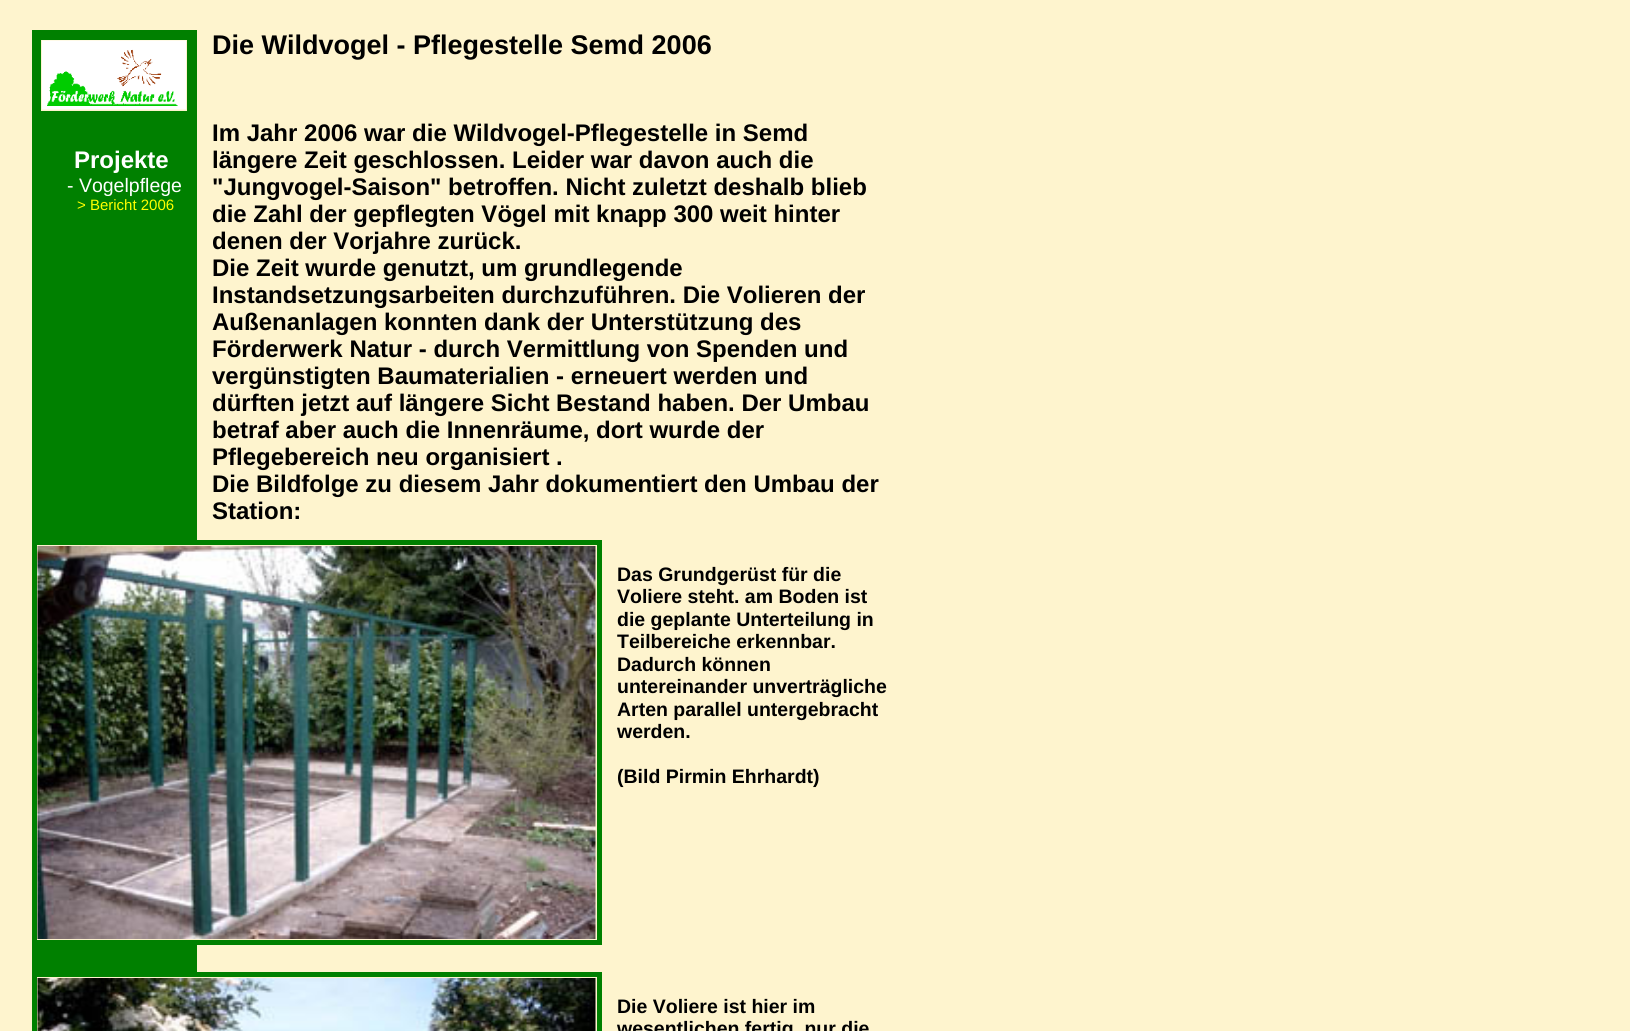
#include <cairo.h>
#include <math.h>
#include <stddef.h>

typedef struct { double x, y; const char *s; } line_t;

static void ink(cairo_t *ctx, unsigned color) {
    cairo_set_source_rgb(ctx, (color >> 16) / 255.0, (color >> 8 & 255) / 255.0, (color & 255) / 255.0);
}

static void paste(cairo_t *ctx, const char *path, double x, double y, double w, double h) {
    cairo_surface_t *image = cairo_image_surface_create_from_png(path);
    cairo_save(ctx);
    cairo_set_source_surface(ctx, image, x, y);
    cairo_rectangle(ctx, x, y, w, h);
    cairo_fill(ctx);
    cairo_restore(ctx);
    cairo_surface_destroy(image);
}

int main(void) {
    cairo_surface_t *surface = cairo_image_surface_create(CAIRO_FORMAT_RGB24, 1630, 1031);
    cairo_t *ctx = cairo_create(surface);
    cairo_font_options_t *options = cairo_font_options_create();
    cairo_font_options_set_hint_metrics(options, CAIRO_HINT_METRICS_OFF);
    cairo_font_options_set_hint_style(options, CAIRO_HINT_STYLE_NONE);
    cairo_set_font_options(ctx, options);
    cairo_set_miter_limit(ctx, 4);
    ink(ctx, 0xFEF4CE);
    cairo_paint(ctx);
    cairo_rectangle(ctx, 36, 34, 157, 82);
    ink(ctx, 0x008000);
    cairo_set_line_width(ctx, 8);
    cairo_stroke(ctx);
    cairo_rectangle(ctx, 40, 39, 148, 73);
    cairo_set_line_width(ctx, 2);
    cairo_stroke(ctx);
    paste(ctx, "media/1.png", 42, 40, 144, 70);
    cairo_select_font_face(ctx, "Liberation Sans", CAIRO_FONT_SLANT_NORMAL, CAIRO_FONT_WEIGHT_BOLD);
    cairo_set_font_size(ctx, 27);
    ink(ctx, 0x000000);
    cairo_move_to(ctx, 212, 54);
    cairo_show_text(ctx, "Die Wildvogel - Pflegestelle Semd 2006");
    ink(ctx, 0x008000);
    cairo_rectangle(ctx, 32, 120, 165, 420);
    cairo_fill(ctx);
    cairo_set_font_size(ctx, 24);
    ink(ctx, 0x000000);
    {
        static const line_t items[] = {
            {212, 141, "Im Jahr 2006 war die Wildvogel-Pflegestelle in Semd"},
            {212, 168, "längere Zeit geschlossen. Leider war davon auch die"},
            {212, 195, "\"Jungvogel-Saison\" betroffen. Nicht zuletzt deshalb blieb"},
            {212, 222, "die Zahl der gepflegten Vögel mit knapp 300 weit hinter"},
            {212, 249, "denen der Vorjahre zurück."},
            {212, 276, "Die Zeit wurde genutzt, um grundlegende"},
            {212, 303, "Instandsetzungsarbeiten durchzuführen. Die Volieren der"},
            {212, 330, "Außenanlagen konnten dank der Unterstützung des"},
            {212, 357, "Förderwerk Natur - durch Vermittlung von Spenden und"},
            {212, 384, "vergünstigten Baumaterialien - erneuert werden und"},
            {212, 411, "dürften jetzt auf längere Sicht Bestand haben. Der Umbau"},
            {212, 438, "betraf aber auch die Innenräume, dort wurde der"},
            {212, 465, "Pflegebereich neu organisiert ."},
            {212, 492, "Die Bildfolge zu diesem Jahr dokumentiert den Umbau der"},
            {212, 519, "Station:"},
        };
        for (size_t i = 0; i < sizeof items / sizeof *items; i++) {
            cairo_move_to(ctx, items[i].x, items[i].y);
            cairo_show_text(ctx, items[i].s);
        }
    }
    ink(ctx, 0xFFFFFF);
    cairo_move_to(ctx, 74, 168);
    cairo_show_text(ctx, "Projekte");
    cairo_select_font_face(ctx, "Liberation Sans", CAIRO_FONT_SLANT_NORMAL, CAIRO_FONT_WEIGHT_NORMAL);
    cairo_set_font_size(ctx, 19.5);
    cairo_move_to(ctx, 67, 192);
    cairo_show_text(ctx, "- Vogelpflege");
    cairo_set_font_size(ctx, 15);
    ink(ctx, 0xFFFF00);
    cairo_move_to(ctx, 77, 210);
    cairo_show_text(ctx, "> Bericht 2006");
    cairo_rectangle(ctx, 33.5, 541.5, 567, 402);
    ink(ctx, 0x008000);
    cairo_set_line_width(ctx, 3);
    cairo_stroke(ctx);
    cairo_rectangle(ctx, 36, 544, 562, 397);
    cairo_set_line_width(ctx, 2);
    cairo_stroke(ctx);
    paste(ctx, "media/2.png", 37, 546, 559, 393);
    cairo_select_font_face(ctx, "Liberation Sans", CAIRO_FONT_SLANT_NORMAL, CAIRO_FONT_WEIGHT_BOLD);
    cairo_set_font_size(ctx, 19.5);
    ink(ctx, 0x000000);
    {
        static const line_t items[] = {
            {617, 581, "Das Grundgerüst für die"},
            {617, 603, "Voliere steht. am Boden ist"},
            {617, 626, "die geplante Unterteilung in"},
            {617, 648, "Teilbereiche erkennbar."},
            {617, 671, "Dadurch können"},
            {617, 693, "untereinander unverträgliche"},
            {617, 716, "Arten parallel untergebracht"},
            {617, 738, "werden."},
            {617, 783, "(Bild Pirmin Ehrhardt)"},
        };
        for (size_t i = 0; i < sizeof items / sizeof *items; i++) {
            cairo_move_to(ctx, items[i].x, items[i].y);
            cairo_show_text(ctx, items[i].s);
        }
    }
    ink(ctx, 0x008000);
    cairo_rectangle(ctx, 32, 945, 165, 27);
    cairo_fill(ctx);
    cairo_rectangle(ctx, 33.5, 973.5, 567, 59);
    cairo_set_line_width(ctx, 3);
    cairo_stroke(ctx);
    cairo_rectangle(ctx, 36, 976, 562, 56);
    cairo_set_line_width(ctx, 2);
    cairo_stroke(ctx);
    paste(ctx, "media/3.png", 37, 978, 559, 53);
    ink(ctx, 0x000000);
    cairo_move_to(ctx, 617, 1013);
    cairo_show_text(ctx, "Die Voliere ist hier im");
    cairo_move_to(ctx, 617, 1035);
    cairo_show_text(ctx, "wesentlichen fertig, nur die");
    cairo_surface_write_to_png(surface, "image.png");
    cairo_font_options_destroy(options);
    cairo_destroy(ctx);
    cairo_surface_destroy(surface);
    return 0;
}
